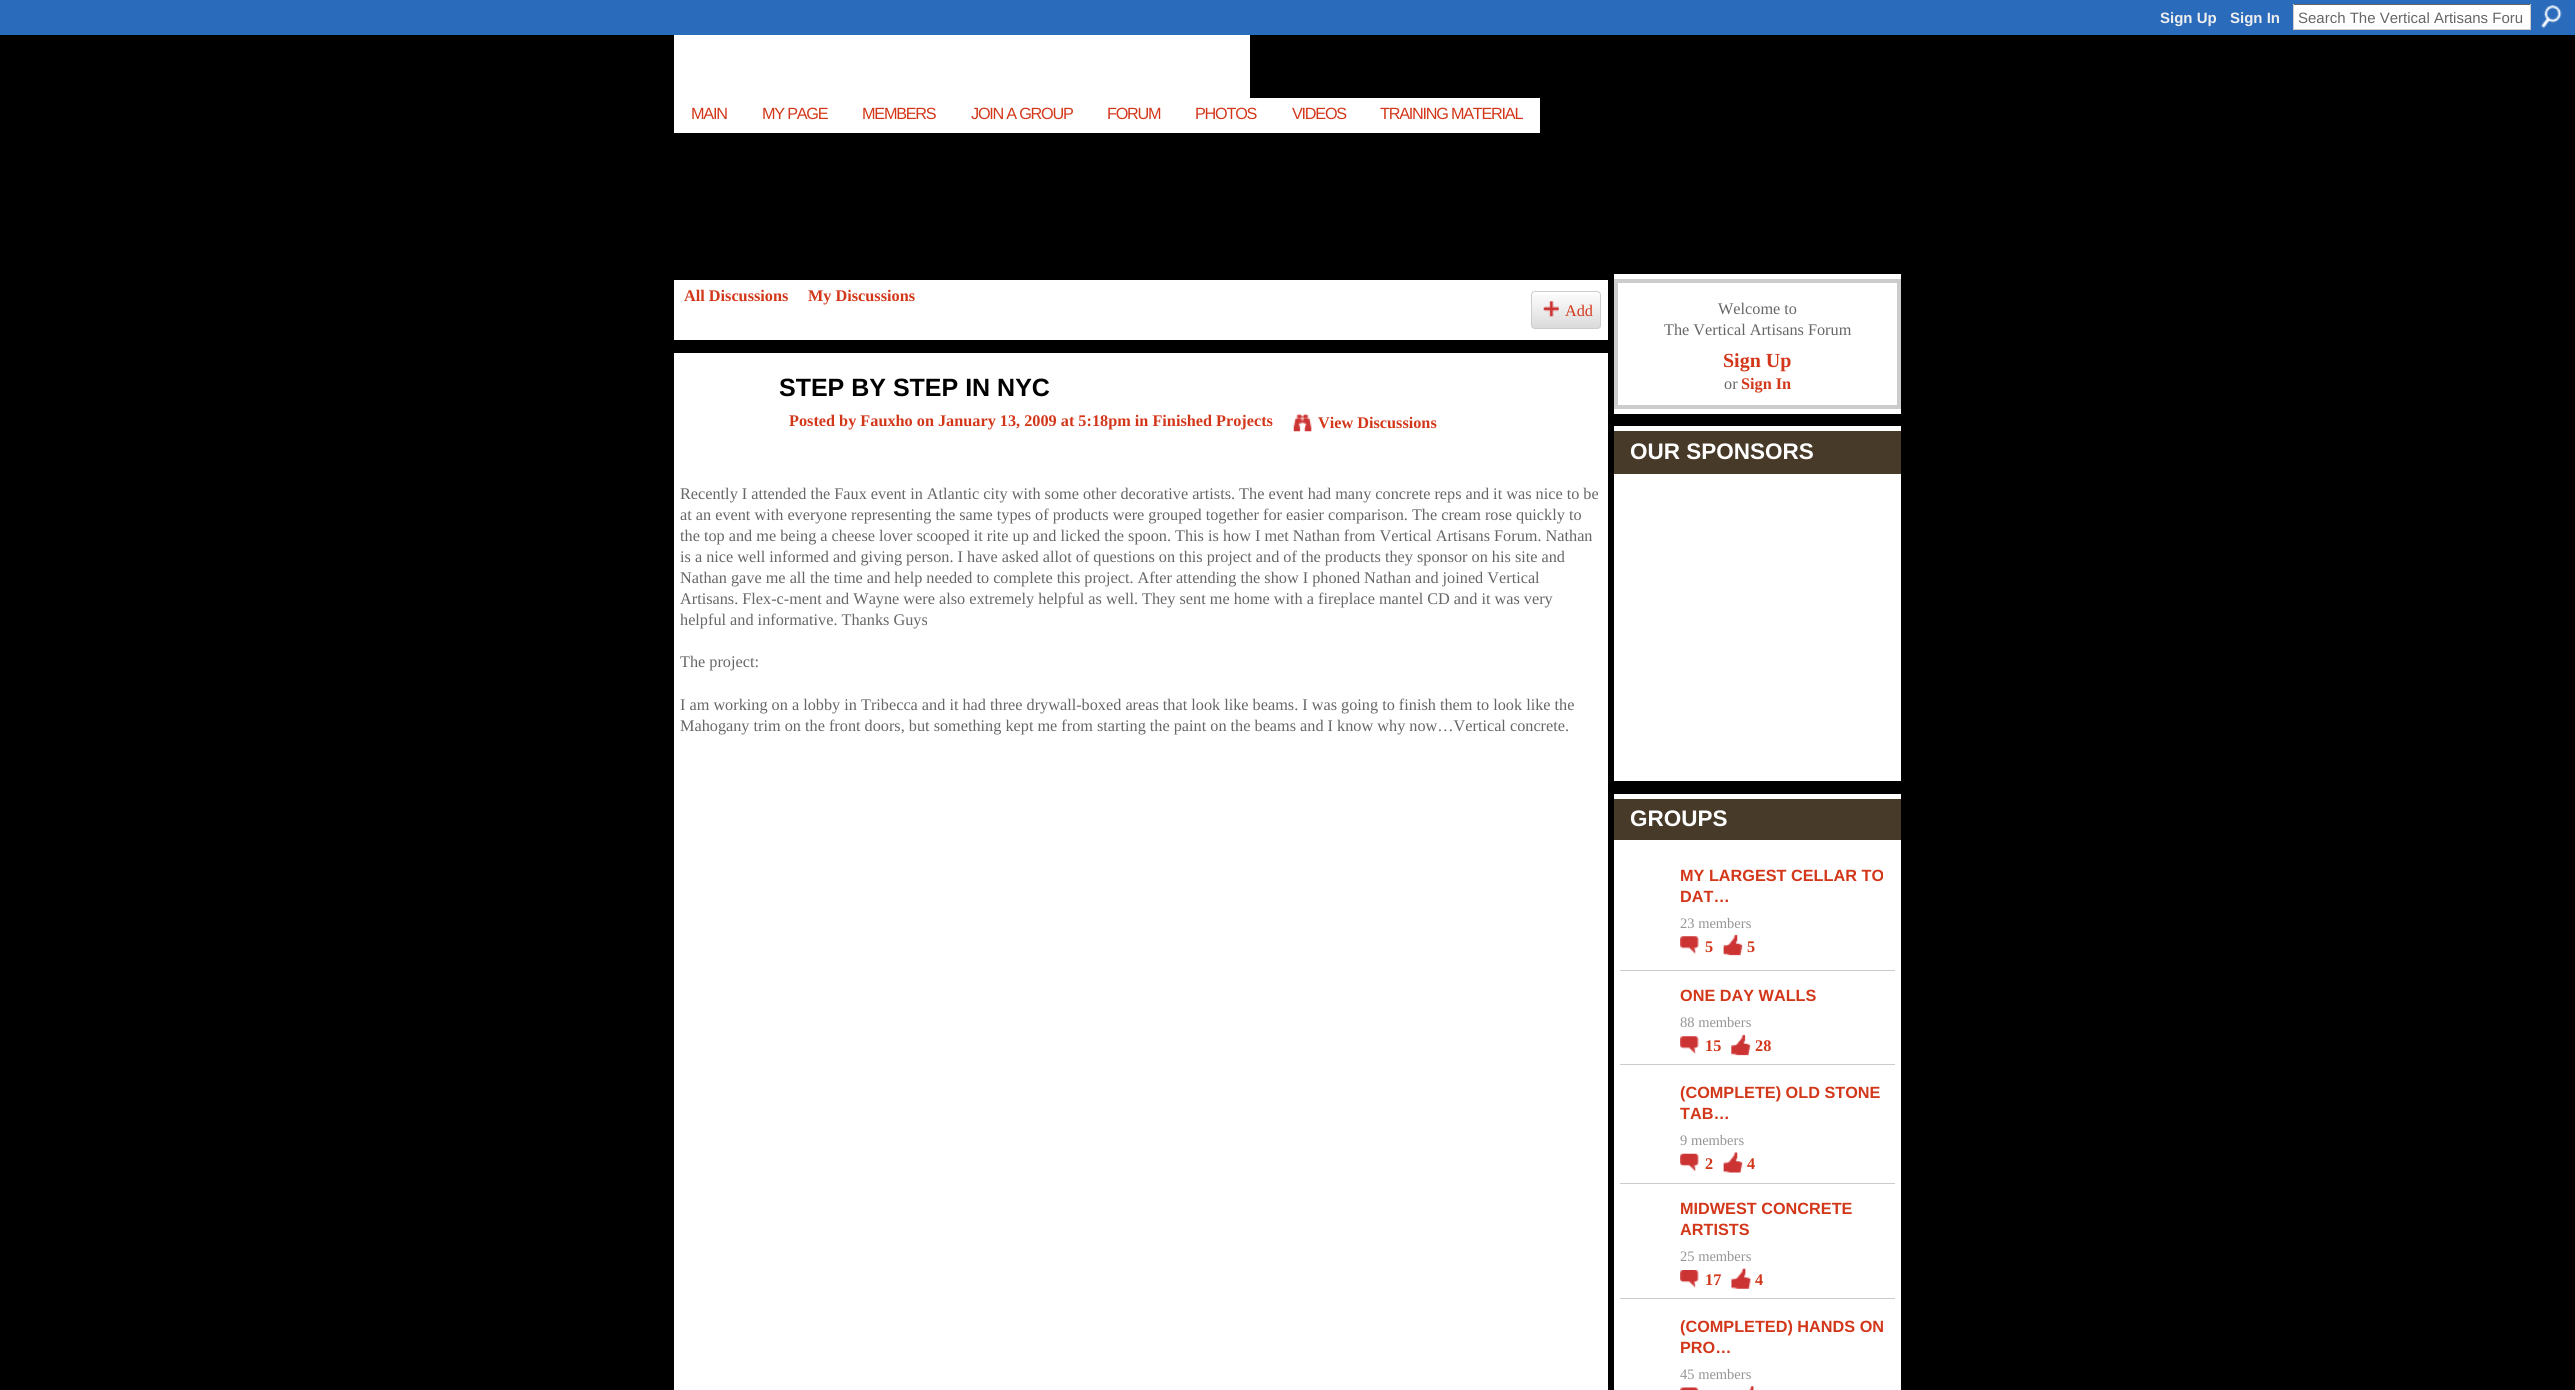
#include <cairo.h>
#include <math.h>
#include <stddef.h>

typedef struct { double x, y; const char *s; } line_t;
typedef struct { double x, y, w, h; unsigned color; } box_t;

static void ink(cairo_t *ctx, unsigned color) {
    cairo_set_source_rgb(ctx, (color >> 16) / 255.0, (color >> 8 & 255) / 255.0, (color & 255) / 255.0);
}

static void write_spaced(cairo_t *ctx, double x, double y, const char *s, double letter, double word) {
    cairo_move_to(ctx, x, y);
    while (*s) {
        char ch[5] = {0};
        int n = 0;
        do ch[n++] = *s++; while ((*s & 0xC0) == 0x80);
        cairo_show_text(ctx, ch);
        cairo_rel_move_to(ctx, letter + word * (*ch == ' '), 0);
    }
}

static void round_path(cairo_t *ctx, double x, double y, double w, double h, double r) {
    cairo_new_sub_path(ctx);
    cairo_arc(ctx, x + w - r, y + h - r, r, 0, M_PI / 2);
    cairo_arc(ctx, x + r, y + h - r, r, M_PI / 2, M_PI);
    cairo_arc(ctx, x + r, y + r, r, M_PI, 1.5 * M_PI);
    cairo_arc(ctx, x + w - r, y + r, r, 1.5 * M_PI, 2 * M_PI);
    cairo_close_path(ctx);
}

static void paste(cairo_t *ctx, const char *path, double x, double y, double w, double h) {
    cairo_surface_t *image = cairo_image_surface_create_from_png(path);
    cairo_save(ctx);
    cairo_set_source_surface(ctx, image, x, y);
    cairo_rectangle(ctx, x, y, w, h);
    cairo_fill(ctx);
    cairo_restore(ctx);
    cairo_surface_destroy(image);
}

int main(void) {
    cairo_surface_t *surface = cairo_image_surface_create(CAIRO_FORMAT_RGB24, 2575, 1390);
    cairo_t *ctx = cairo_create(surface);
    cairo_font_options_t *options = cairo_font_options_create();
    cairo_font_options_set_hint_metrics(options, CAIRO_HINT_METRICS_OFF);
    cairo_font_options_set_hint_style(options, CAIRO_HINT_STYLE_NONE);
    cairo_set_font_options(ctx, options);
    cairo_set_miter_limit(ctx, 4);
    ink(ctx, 0x000000);
    cairo_paint(ctx);
    ink(ctx, 0x2B6BBB);
    cairo_rectangle(ctx, 0, 0, 2575, 35);
    cairo_fill(ctx);
    cairo_select_font_face(ctx, "Liberation Sans", CAIRO_FONT_SLANT_NORMAL, CAIRO_FONT_WEIGHT_BOLD);
    cairo_set_font_size(ctx, 15);
    ink(ctx, 0xEEEEEE);
    cairo_move_to(ctx, 2160, 23);
    cairo_show_text(ctx, "Sign Up");
    cairo_move_to(ctx, 2230, 23);
    cairo_show_text(ctx, "Sign In");
    {
        static const box_t items[] = {
            {2294, 5, 236, 24, 0xFFFFFF},
            {2293, 4, 238, 1, 0x666666},
            {2530, 4, 1, 26, 0xCCCCCC},
            {2293, 29, 238, 1, 0xCCCCCC},
            {2293, 4, 1, 26, 0xCCCCCC},
        };
        for (size_t i = 0; i < sizeof items / sizeof *items; i++) {
            ink(ctx, items[i].color);
            cairo_rectangle(ctx, items[i].x, items[i].y, items[i].w, items[i].h);
            cairo_fill(ctx);
        }
    }
    cairo_select_font_face(ctx, "Liberation Sans", CAIRO_FONT_SLANT_NORMAL, CAIRO_FONT_WEIGHT_NORMAL);
    ink(ctx, 0x666666);
    cairo_move_to(ctx, 2298, 23);
    cairo_show_text(ctx, "Search The Vertical Artisans Foru");
    paste(ctx, "media/1.png", 2541, 5, 21, 23);
    ink(ctx, 0xFFFFFF);
    cairo_rectangle(ctx, 674, 35, 576, 63);
    cairo_fill(ctx);
    cairo_rectangle(ctx, 674, 98, 866, 35);
    cairo_fill(ctx);
    cairo_set_font_size(ctx, 16.25);
    ink(ctx, 0xD3371A);
    {
        static const line_t items[] = {
            {691, 119, "MAIN"},
            {762, 119, "MY PAGE"},
            {862, 119, "MEMBERS"},
            {971, 119, "JOIN A GROUP"},
            {1107, 119, "FORUM"},
            {1195, 119, "PHOTOS"},
            {1292, 119, "VIDEOS"},
            {1380, 119, "TRAINING MATERIAL"},
        };
        for (size_t i = 0; i < sizeof items / sizeof *items; i++) {
            write_spaced(ctx, items[i].x, items[i].y, items[i].s, -1.25, 0);
        }
    }
    ink(ctx, 0xFFFFFF);
    cairo_rectangle(ctx, 674, 280, 934, 60);
    cairo_fill(ctx);
    cairo_select_font_face(ctx, "Liberation Serif", CAIRO_FONT_SLANT_NORMAL, CAIRO_FONT_WEIGHT_BOLD);
    ink(ctx, 0xD3371A);
    cairo_move_to(ctx, 684, 301);
    cairo_show_text(ctx, "All Discussions");
    cairo_move_to(ctx, 808, 301);
    cairo_show_text(ctx, "My Discussions");
    paste(ctx, "media/2.png", 1531, 294, 70, 35);
    round_path(ctx, 1531.5, 291.5, 69, 37, 3.5);
    ink(ctx, 0xCCCCCC);
    cairo_set_line_width(ctx, 1);
    cairo_stroke(ctx);
    paste(ctx, "media/3.png", 1543, 301, 16, 16);
    cairo_select_font_face(ctx, "Liberation Serif", CAIRO_FONT_SLANT_NORMAL, CAIRO_FONT_WEIGHT_NORMAL);
    ink(ctx, 0xD3371A);
    cairo_move_to(ctx, 1565, 316);
    cairo_show_text(ctx, "Add");
    ink(ctx, 0xFFFFFF);
    cairo_rectangle(ctx, 674, 353, 934, 1037);
    cairo_fill(ctx);
    cairo_select_font_face(ctx, "Liberation Sans", CAIRO_FONT_SLANT_NORMAL, CAIRO_FONT_WEIGHT_BOLD);
    cairo_set_font_size(ctx, 25);
    ink(ctx, 0x000000);
    cairo_move_to(ctx, 779, 396);
    cairo_show_text(ctx, "STEP BY STEP IN NYC");
    cairo_select_font_face(ctx, "Liberation Serif", CAIRO_FONT_SLANT_NORMAL, CAIRO_FONT_WEIGHT_BOLD);
    cairo_set_font_size(ctx, 16.25);
    ink(ctx, 0xD3371A);
    cairo_move_to(ctx, 789, 426);
    cairo_show_text(ctx, "Posted by Fauxho on January 13, 2009 at 5:18pm in Finished Projects");
    paste(ctx, "media/4.png", 1293, 413, 19, 19);
    cairo_move_to(ctx, 1318, 428);
    cairo_show_text(ctx, "View Discussions");
    cairo_select_font_face(ctx, "Liberation Serif", CAIRO_FONT_SLANT_NORMAL, CAIRO_FONT_WEIGHT_NORMAL);
    ink(ctx, 0x666666);
    {
        static const line_t items[] = {
            {680, 499, "Recently I attended the Faux event in Atlantic city with some other decorative artists. The event had many concrete reps and it was nice to be"},
            {680, 520, "at an event with everyone representing the same types of products were grouped together for easier comparison. The cream rose quickly to"},
            {680, 541, "the top and me being a cheese lover scooped it rite up and licked the spoon. This is how I met Nathan from Vertical Artisans Forum. Nathan"},
            {680, 562, "is a nice well informed and giving person. I have asked allot of questions on this project and of the products they sponsor on his site and"},
            {680, 583, "Nathan gave me all the time and help needed to complete this project. After attending the show I phoned Nathan and joined Vertical"},
            {680, 604, "Artisans. Flex-c-ment and Wayne were also extremely helpful as well. They sent me home with a fireplace mantel CD and it was very"},
            {680, 625, "helpful and informative. Thanks Guys"},
            {680, 667, "The project:"},
            {680, 710, "I am working on a lobby in Tribecca and it had three drywall-boxed areas that look like beams. I was going to finish them to look like the"},
            {680, 731, "Mahogany trim on the front doors, but something kept me from starting the paint on the beams and I know why now…Vertical concrete."},
        };
        for (size_t i = 0; i < sizeof items / sizeof *items; i++) {
            cairo_move_to(ctx, items[i].x, items[i].y);
            cairo_show_text(ctx, items[i].s);
        }
    }
    ink(ctx, 0xFFFFFF);
    cairo_rectangle(ctx, 1614, 274, 287, 140);
    cairo_fill(ctx);
    cairo_rectangle(ctx, 1616, 281, 283, 126);
    ink(ctx, 0xCCCCCC);
    cairo_set_line_width(ctx, 4);
    cairo_stroke(ctx);
    ink(ctx, 0x666666);
    cairo_move_to(ctx, 1718, 314);
    cairo_show_text(ctx, "Welcome to");
    cairo_move_to(ctx, 1664, 335);
    cairo_show_text(ctx, "The Vertical Artisans Forum");
    cairo_select_font_face(ctx, "Liberation Serif", CAIRO_FONT_SLANT_NORMAL, CAIRO_FONT_WEIGHT_BOLD);
    cairo_set_font_size(ctx, 20);
    ink(ctx, 0xD3371A);
    cairo_move_to(ctx, 1723, 367);
    cairo_show_text(ctx, "Sign Up");
    cairo_select_font_face(ctx, "Liberation Serif", CAIRO_FONT_SLANT_NORMAL, CAIRO_FONT_WEIGHT_NORMAL);
    cairo_set_font_size(ctx, 16.25);
    ink(ctx, 0x666666);
    cairo_move_to(ctx, 1724, 389);
    cairo_show_text(ctx, "or");
    cairo_select_font_face(ctx, "Liberation Serif", CAIRO_FONT_SLANT_NORMAL, CAIRO_FONT_WEIGHT_BOLD);
    ink(ctx, 0xD3371A);
    cairo_move_to(ctx, 1741, 389);
    cairo_show_text(ctx, "Sign In");
    ink(ctx, 0xFFFFFF);
    cairo_rectangle(ctx, 1614, 426, 287, 355);
    cairo_fill(ctx);
    ink(ctx, 0x473A29);
    cairo_rectangle(ctx, 1614, 431, 287, 43);
    cairo_fill(ctx);
    cairo_select_font_face(ctx, "Liberation Sans", CAIRO_FONT_SLANT_NORMAL, CAIRO_FONT_WEIGHT_BOLD);
    cairo_set_font_size(ctx, 22.5);
    ink(ctx, 0xFFFFFF);
    cairo_move_to(ctx, 1630, 459);
    cairo_show_text(ctx, "OUR SPONSORS");
    cairo_rectangle(ctx, 1614, 794, 287, 596);
    cairo_fill(ctx);
    ink(ctx, 0x473A29);
    cairo_rectangle(ctx, 1614, 799, 287, 41);
    cairo_fill(ctx);
    ink(ctx, 0xFFFFFF);
    cairo_move_to(ctx, 1630, 826);
    cairo_show_text(ctx, "GROUPS");
    ink(ctx, 0xCCCCCC);
    cairo_rectangle(ctx, 1620, 970, 275, 1);
    cairo_fill(ctx);
    cairo_set_font_size(ctx, 16.25);
    ink(ctx, 0xD3371A);
    cairo_move_to(ctx, 1680, 881);
    cairo_show_text(ctx, "MY LARGEST CELLAR TO");
    cairo_move_to(ctx, 1680, 902);
    cairo_show_text(ctx, "DAT…");
    cairo_select_font_face(ctx, "Liberation Serif", CAIRO_FONT_SLANT_NORMAL, CAIRO_FONT_WEIGHT_NORMAL);
    cairo_set_font_size(ctx, 14.5);
    ink(ctx, 0x959595);
    cairo_move_to(ctx, 1680, 928);
    cairo_show_text(ctx, "23 members");
    paste(ctx, "media/5.png", 1680, 936, 19, 18);
    cairo_select_font_face(ctx, "Liberation Serif", CAIRO_FONT_SLANT_NORMAL, CAIRO_FONT_WEIGHT_BOLD);
    cairo_set_font_size(ctx, 16.25);
    ink(ctx, 0xD3371A);
    cairo_move_to(ctx, 1705, 952);
    cairo_show_text(ctx, "5");
    paste(ctx, "media/6.png", 1723, 934, 20, 22);
    cairo_move_to(ctx, 1747, 952);
    cairo_show_text(ctx, "5");
    ink(ctx, 0xCCCCCC);
    cairo_rectangle(ctx, 1620, 1064, 275, 1);
    cairo_fill(ctx);
    cairo_select_font_face(ctx, "Liberation Sans", CAIRO_FONT_SLANT_NORMAL, CAIRO_FONT_WEIGHT_BOLD);
    ink(ctx, 0xD3371A);
    cairo_move_to(ctx, 1680, 1001);
    cairo_show_text(ctx, "ONE DAY WALLS");
    cairo_select_font_face(ctx, "Liberation Serif", CAIRO_FONT_SLANT_NORMAL, CAIRO_FONT_WEIGHT_NORMAL);
    cairo_set_font_size(ctx, 14.5);
    ink(ctx, 0x959595);
    cairo_move_to(ctx, 1680, 1027);
    cairo_show_text(ctx, "88 members");
    paste(ctx, "media/7.png", 1680, 1036, 19, 18);
    cairo_select_font_face(ctx, "Liberation Serif", CAIRO_FONT_SLANT_NORMAL, CAIRO_FONT_WEIGHT_BOLD);
    cairo_set_font_size(ctx, 16.25);
    ink(ctx, 0xD3371A);
    cairo_move_to(ctx, 1705, 1051);
    cairo_show_text(ctx, "15");
    paste(ctx, "media/8.png", 1731, 1034, 20, 22);
    cairo_move_to(ctx, 1755, 1051);
    cairo_show_text(ctx, "28");
    ink(ctx, 0xCCCCCC);
    cairo_rectangle(ctx, 1620, 1183, 275, 1);
    cairo_fill(ctx);
    cairo_select_font_face(ctx, "Liberation Sans", CAIRO_FONT_SLANT_NORMAL, CAIRO_FONT_WEIGHT_BOLD);
    ink(ctx, 0xD3371A);
    cairo_move_to(ctx, 1680, 1098);
    cairo_show_text(ctx, "(COMPLETE) OLD STONE");
    cairo_move_to(ctx, 1680, 1119);
    cairo_show_text(ctx, "TAB…");
    cairo_select_font_face(ctx, "Liberation Serif", CAIRO_FONT_SLANT_NORMAL, CAIRO_FONT_WEIGHT_NORMAL);
    cairo_set_font_size(ctx, 14.5);
    ink(ctx, 0x959595);
    cairo_move_to(ctx, 1680, 1145);
    cairo_show_text(ctx, "9 members");
    paste(ctx, "media/9.png", 1680, 1153, 19, 19);
    cairo_select_font_face(ctx, "Liberation Serif", CAIRO_FONT_SLANT_NORMAL, CAIRO_FONT_WEIGHT_BOLD);
    cairo_set_font_size(ctx, 16.25);
    ink(ctx, 0xD3371A);
    cairo_move_to(ctx, 1705, 1169);
    cairo_show_text(ctx, "2");
    paste(ctx, "media/10.png", 1723, 1152, 20, 21);
    cairo_move_to(ctx, 1747, 1169);
    cairo_show_text(ctx, "4");
    ink(ctx, 0xCCCCCC);
    cairo_rectangle(ctx, 1620, 1298, 275, 1);
    cairo_fill(ctx);
    cairo_select_font_face(ctx, "Liberation Sans", CAIRO_FONT_SLANT_NORMAL, CAIRO_FONT_WEIGHT_BOLD);
    ink(ctx, 0xD3371A);
    cairo_move_to(ctx, 1680, 1214);
    cairo_show_text(ctx, "MIDWEST CONCRETE");
    cairo_move_to(ctx, 1680, 1235);
    cairo_show_text(ctx, "ARTISTS");
    cairo_select_font_face(ctx, "Liberation Serif", CAIRO_FONT_SLANT_NORMAL, CAIRO_FONT_WEIGHT_NORMAL);
    cairo_set_font_size(ctx, 14.5);
    ink(ctx, 0x959595);
    cairo_move_to(ctx, 1680, 1261);
    cairo_show_text(ctx, "25 members");
    paste(ctx, "media/11.png", 1680, 1270, 19, 18);
    cairo_select_font_face(ctx, "Liberation Serif", CAIRO_FONT_SLANT_NORMAL, CAIRO_FONT_WEIGHT_BOLD);
    cairo_set_font_size(ctx, 16.25);
    ink(ctx, 0xD3371A);
    cairo_move_to(ctx, 1705, 1285);
    cairo_show_text(ctx, "17");
    paste(ctx, "media/12.png", 1731, 1268, 20, 21);
    cairo_move_to(ctx, 1755, 1285);
    cairo_show_text(ctx, "4");
    cairo_select_font_face(ctx, "Liberation Sans", CAIRO_FONT_SLANT_NORMAL, CAIRO_FONT_WEIGHT_BOLD);
    cairo_move_to(ctx, 1680, 1332);
    cairo_show_text(ctx, "(COMPLETED) HANDS ON");
    cairo_move_to(ctx, 1680, 1353);
    cairo_show_text(ctx, "PRO…");
    cairo_select_font_face(ctx, "Liberation Serif", CAIRO_FONT_SLANT_NORMAL, CAIRO_FONT_WEIGHT_NORMAL);
    cairo_set_font_size(ctx, 14.5);
    ink(ctx, 0x959595);
    cairo_move_to(ctx, 1680, 1379);
    cairo_show_text(ctx, "45 members");
    paste(ctx, "media/13.png", 1680, 1387, 19, 3);
    paste(ctx, "media/14.png", 1749, 1386, 5, 4);
    cairo_surface_write_to_png(surface, "image.png");
    cairo_font_options_destroy(options);
    cairo_destroy(ctx);
    cairo_surface_destroy(surface);
    return 0;
}
